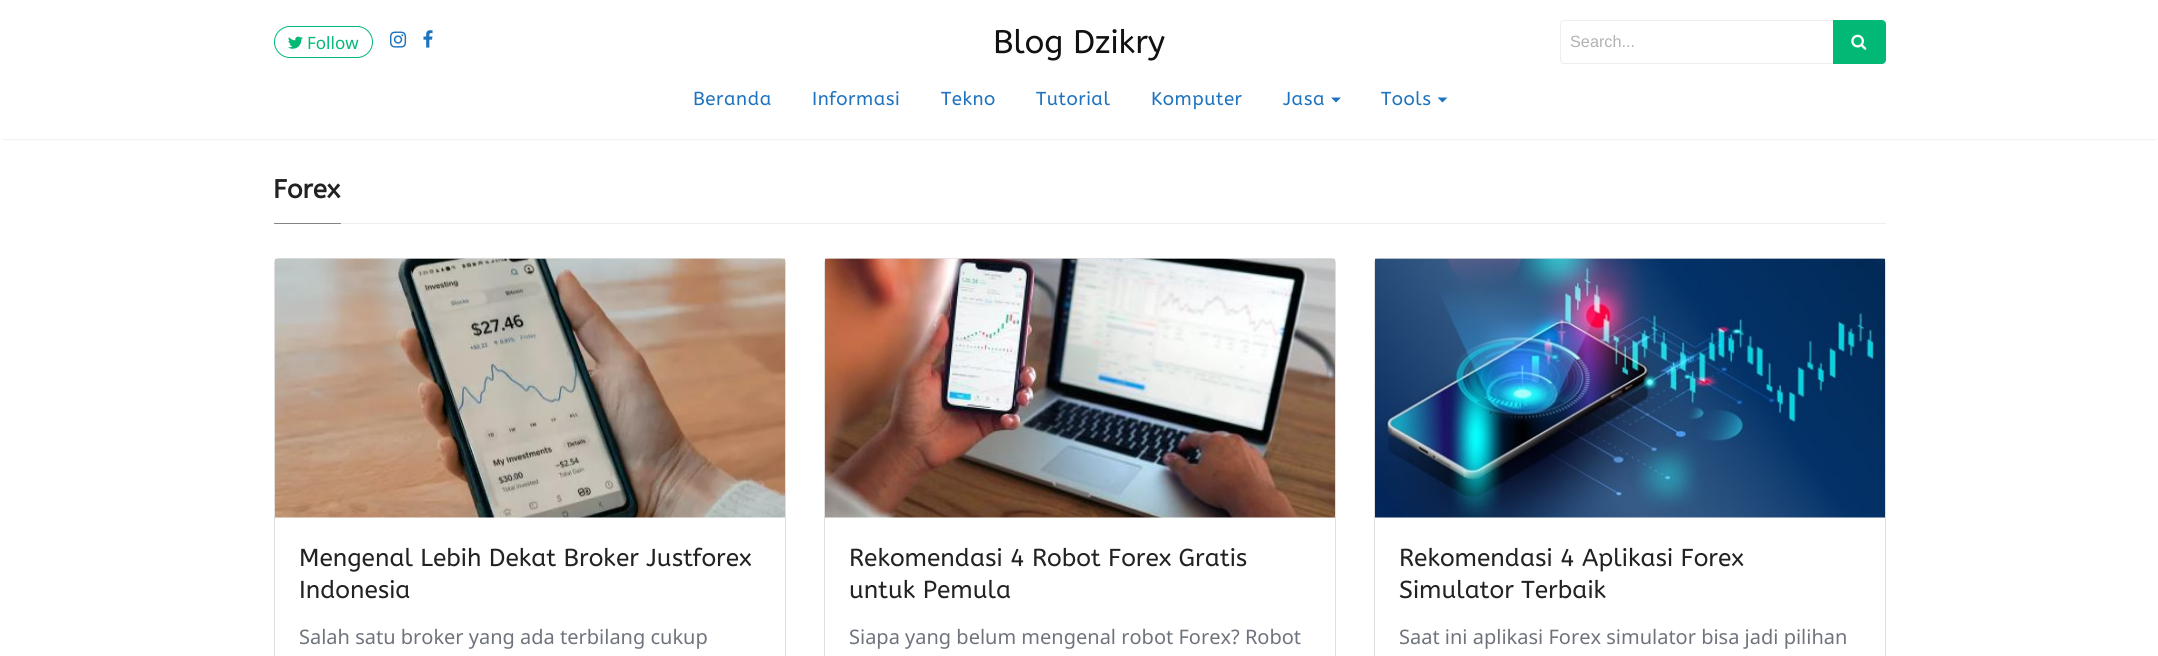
#include <cairo.h>
#include <math.h>
#include <stddef.h>

typedef struct { double x, y; const char *s; } line_t;

static void ink(cairo_t *ctx, unsigned color) {
    cairo_set_source_rgb(ctx, (color >> 16) / 255.0, (color >> 8 & 255) / 255.0, (color & 255) / 255.0);
}

static void write_spaced(cairo_t *ctx, double x, double y, const char *s, double letter, double word) {
    cairo_move_to(ctx, x, y);
    while (*s) {
        char ch[5] = {0};
        int n = 0;
        do ch[n++] = *s++; while ((*s & 0xC0) == 0x80);
        cairo_show_text(ctx, ch);
        cairo_rel_move_to(ctx, letter + word * (*ch == ' '), 0);
    }
}

static void round_path(cairo_t *ctx, double x, double y, double w, double h, double r) {
    cairo_new_sub_path(ctx);
    cairo_arc(ctx, x + w - r, y + h - r, r, 0, M_PI / 2);
    cairo_arc(ctx, x + r, y + h - r, r, M_PI / 2, M_PI);
    cairo_arc(ctx, x + r, y + r, r, M_PI, 1.5 * M_PI);
    cairo_arc(ctx, x + w - r, y + r, r, 1.5 * M_PI, 2 * M_PI);
    cairo_close_path(ctx);
}

static void blur_box(cairo_t *ctx, double x, double y, double w, double h, double r, double blur, double alpha) {
    cairo_push_group_with_content(ctx, CAIRO_CONTENT_ALPHA);
    cairo_set_operator(ctx, CAIRO_OPERATOR_SOURCE);
    for (int i = 15; i >= -15 && fmin(w, h) + blur * i / 3 > 0; i -= 2) {
        double e = blur * i / 6;
        cairo_set_source_rgba(ctx, 0, 0, 0, alpha * erfc((i - 1) / 8.5) / 2);
        round_path(ctx, x - e, y - e, w + 2 * e, h + 2 * e, fmax(0, fmin(r + e + blur * .6, fmin(w, h) / 2 + e)));
        cairo_fill(ctx);
    }
    cairo_pattern_t *soft = cairo_pop_group(ctx);
    cairo_mask(ctx, soft);
    cairo_pattern_destroy(soft);
}

static void paste(cairo_t *ctx, const char *path, double x, double y, double w, double h) {
    cairo_surface_t *image = cairo_image_surface_create_from_png(path);
    cairo_save(ctx);
    cairo_set_source_surface(ctx, image, x, y);
    cairo_rectangle(ctx, x, y, w, h);
    cairo_fill(ctx);
    cairo_restore(ctx);
    cairo_surface_destroy(image);
}

int main(void) {
    cairo_surface_t *surface = cairo_image_surface_create(CAIRO_FORMAT_RGB24, 2158, 656);
    cairo_t *ctx = cairo_create(surface);
    cairo_font_options_t *options = cairo_font_options_create();
    cairo_font_options_set_hint_metrics(options, CAIRO_HINT_METRICS_OFF);
    cairo_font_options_set_hint_style(options, CAIRO_HINT_STYLE_NONE);
    cairo_set_font_options(ctx, options);
    cairo_set_miter_limit(ctx, 4);
    ink(ctx, 0xFFFFFF);
    cairo_paint(ctx);
    cairo_save(ctx);
    cairo_set_fill_rule(ctx, CAIRO_FILL_RULE_EVEN_ODD);
    cairo_new_path(ctx);
    cairo_move_to(ctx, 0, 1);
    cairo_line_to(ctx, 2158, 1);
    cairo_line_to(ctx, 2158, 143);
    cairo_line_to(ctx, 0, 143);
    cairo_close_path(ctx);
    cairo_move_to(ctx, 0, 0);
    cairo_line_to(ctx, 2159, 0);
    cairo_line_to(ctx, 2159, 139);
    cairo_line_to(ctx, 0, 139);
    cairo_close_path(ctx);
    cairo_clip(ctx);
    ink(ctx, 0x000000);
    blur_box(ctx, 3, 5, 2153, 134, 0, 1, 0.15);
    cairo_restore(ctx);
    cairo_set_source_rgba(ctx, 1, 1, 1, 0.97);
    cairo_rectangle(ctx, 3, 138, 2153, 1);
    cairo_fill(ctx);
    round_path(ctx, 274.5, 26.5, 98, 31, 15.5);
    ink(ctx, 0x02B875);
    cairo_set_line_width(ctx, 1);
    cairo_stroke(ctx);
    paste(ctx, "media/1.png", 288, 36, 15, 13);
    cairo_select_font_face(ctx, "Noto Sans", CAIRO_FONT_SLANT_NORMAL, CAIRO_FONT_WEIGHT_NORMAL);
    cairo_set_font_size(ctx, 17);
    cairo_move_to(ctx, 307, 49);
    cairo_show_text(ctx, "Follow");
    paste(ctx, "media/2.png", 390, 31, 17, 17);
    paste(ctx, "media/3.png", 423, 30, 10, 18);
    cairo_select_font_face(ctx, "ABeeZee", CAIRO_FONT_SLANT_NORMAL, CAIRO_FONT_WEIGHT_NORMAL);
    cairo_set_font_size(ctx, 32.5);
    ink(ctx, 0x111111);
    cairo_move_to(ctx, 993, 53);
    cairo_show_text(ctx, "Blog Dzikry");
    cairo_new_path(ctx);
    cairo_move_to(ctx, 1564, 20.5);
    cairo_line_to(ctx, 1834.5, 20.5);
    cairo_line_to(ctx, 1834.5, 63.5);
    cairo_line_to(ctx, 1564, 63.5);
    cairo_curve_to(ctx, 1562, 63.5, 1560.5, 62, 1560.5, 60);
    cairo_line_to(ctx, 1560.5, 24);
    cairo_curve_to(ctx, 1560.5, 22, 1562, 20.5, 1564, 20.5);
    cairo_close_path(ctx);
    ink(ctx, 0xEEEEEE);
    cairo_stroke(ctx);
    cairo_select_font_face(ctx, "Liberation Sans", CAIRO_FONT_SLANT_NORMAL, CAIRO_FONT_WEIGHT_NORMAL);
    cairo_set_font_size(ctx, 16.25);
    ink(ctx, 0xB2B2B2);
    cairo_move_to(ctx, 1570, 47);
    cairo_show_text(ctx, "Search...");
    ink(ctx, 0x02B875);
    cairo_new_path(ctx);
    cairo_move_to(ctx, 1833, 20);
    cairo_line_to(ctx, 1882, 20);
    cairo_curve_to(ctx, 1884, 20, 1886, 22, 1886, 24);
    cairo_line_to(ctx, 1886, 60);
    cairo_curve_to(ctx, 1886, 62, 1884, 64, 1882, 64);
    cairo_line_to(ctx, 1833, 64);
    cairo_close_path(ctx);
    cairo_fill(ctx);
    paste(ctx, "media/4.png", 1851, 34, 16, 16);
    cairo_select_font_face(ctx, "ABeeZee", CAIRO_FONT_SLANT_NORMAL, CAIRO_FONT_WEIGHT_NORMAL);
    cairo_set_font_size(ctx, 18.75);
    ink(ctx, 0x1E73BE);
    {
        static const line_t items[] = {
            {693, 105, "Beranda"},
            {812, 105, "Informasi"},
            {941, 105, "Tekno"},
            {1036, 105, "Tutorial"},
            {1151, 105, "Komputer"},
            {1283, 105, "Jasa"},
        };
        for (size_t i = 0; i < sizeof items / sizeof *items; i++) {
            write_spaced(ctx, items[i].x, items[i].y, items[i].s, 0.5, 0);
        }
    }
    cairo_new_path(ctx);
    cairo_move_to(ctx, 1331, 97.5);
    cairo_line_to(ctx, 1341, 97.5);
    cairo_line_to(ctx, 1336, 102.5);
    cairo_close_path(ctx);
    cairo_fill(ctx);
    write_spaced(ctx, 1381, 105, "Tools", 0.5, 0);
    cairo_new_path(ctx);
    cairo_move_to(ctx, 1437.5, 97.5);
    cairo_line_to(ctx, 1447.5, 97.5);
    cairo_line_to(ctx, 1442.5, 102.5);
    cairo_close_path(ctx);
    cairo_fill(ctx);
    ink(ctx, 0xEEEEEE);
    cairo_rectangle(ctx, 341, 223, 1545, 1);
    cairo_fill(ctx);
    ink(ctx, 0x858585);
    cairo_rectangle(ctx, 274, 223, 67, 1);
    cairo_fill(ctx);
    cairo_select_font_face(ctx, "ABeeZee", CAIRO_FONT_SLANT_NORMAL, CAIRO_FONT_WEIGHT_BOLD);
    cairo_set_font_size(ctx, 26);
    ink(ctx, 0x222222);
    cairo_move_to(ctx, 273, 198);
    cairo_show_text(ctx, "Forex");
    round_path(ctx, 274.5, 258.5, 511, 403, 4.5);
    ink(ctx, 0xDFDFDF);
    cairo_stroke(ctx);
    paste(ctx, "media/5.png", 275, 258, 510, 260);
    cairo_select_font_face(ctx, "ABeeZee", CAIRO_FONT_SLANT_NORMAL, CAIRO_FONT_WEIGHT_NORMAL);
    cairo_set_font_size(ctx, 24.5);
    ink(ctx, 0x222222);
    cairo_move_to(ctx, 299, 566);
    cairo_show_text(ctx, "Mengenal Lebih Dekat Broker Justforex");
    cairo_move_to(ctx, 299, 598);
    cairo_show_text(ctx, "Indonesia");
    cairo_select_font_face(ctx, "Noto Sans", CAIRO_FONT_SLANT_NORMAL, CAIRO_FONT_WEIGHT_NORMAL);
    cairo_set_font_size(ctx, 20);
    ink(ctx, 0x6F737C);
    cairo_move_to(ctx, 299, 644);
    cairo_show_text(ctx, "Salah satu broker yang ada terbilang cukup");
    round_path(ctx, 824.5, 258.5, 511, 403, 4.5);
    ink(ctx, 0xDFDFDF);
    cairo_stroke(ctx);
    paste(ctx, "media/6.png", 825, 258, 510, 260);
    cairo_select_font_face(ctx, "ABeeZee", CAIRO_FONT_SLANT_NORMAL, CAIRO_FONT_WEIGHT_NORMAL);
    cairo_set_font_size(ctx, 24.5);
    ink(ctx, 0x222222);
    cairo_move_to(ctx, 849, 566);
    cairo_show_text(ctx, "Rekomendasi 4 Robot Forex Gratis");
    cairo_move_to(ctx, 849, 598);
    cairo_show_text(ctx, "untuk Pemula");
    cairo_select_font_face(ctx, "Noto Sans", CAIRO_FONT_SLANT_NORMAL, CAIRO_FONT_WEIGHT_NORMAL);
    cairo_set_font_size(ctx, 20);
    ink(ctx, 0x6F737C);
    cairo_move_to(ctx, 849, 644);
    cairo_show_text(ctx, "Siapa yang belum mengenal robot Forex? Robot");
    round_path(ctx, 1374.5, 258.5, 511, 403, 4.5);
    ink(ctx, 0xDFDFDF);
    cairo_stroke(ctx);
    paste(ctx, "media/7.png", 1375, 258, 510, 260);
    cairo_select_font_face(ctx, "ABeeZee", CAIRO_FONT_SLANT_NORMAL, CAIRO_FONT_WEIGHT_NORMAL);
    cairo_set_font_size(ctx, 24.5);
    ink(ctx, 0x222222);
    cairo_move_to(ctx, 1399, 566);
    cairo_show_text(ctx, "Rekomendasi 4 Aplikasi Forex");
    cairo_move_to(ctx, 1399, 598);
    cairo_show_text(ctx, "Simulator Terbaik");
    cairo_select_font_face(ctx, "Noto Sans", CAIRO_FONT_SLANT_NORMAL, CAIRO_FONT_WEIGHT_NORMAL);
    cairo_set_font_size(ctx, 20);
    ink(ctx, 0x6F737C);
    cairo_move_to(ctx, 1399, 644);
    cairo_show_text(ctx, "Saat ini aplikasi Forex simulator bisa jadi pilihan");
    cairo_surface_write_to_png(surface, "image.png");
    cairo_font_options_destroy(options);
    cairo_destroy(ctx);
    cairo_surface_destroy(surface);
    return 0;
}
